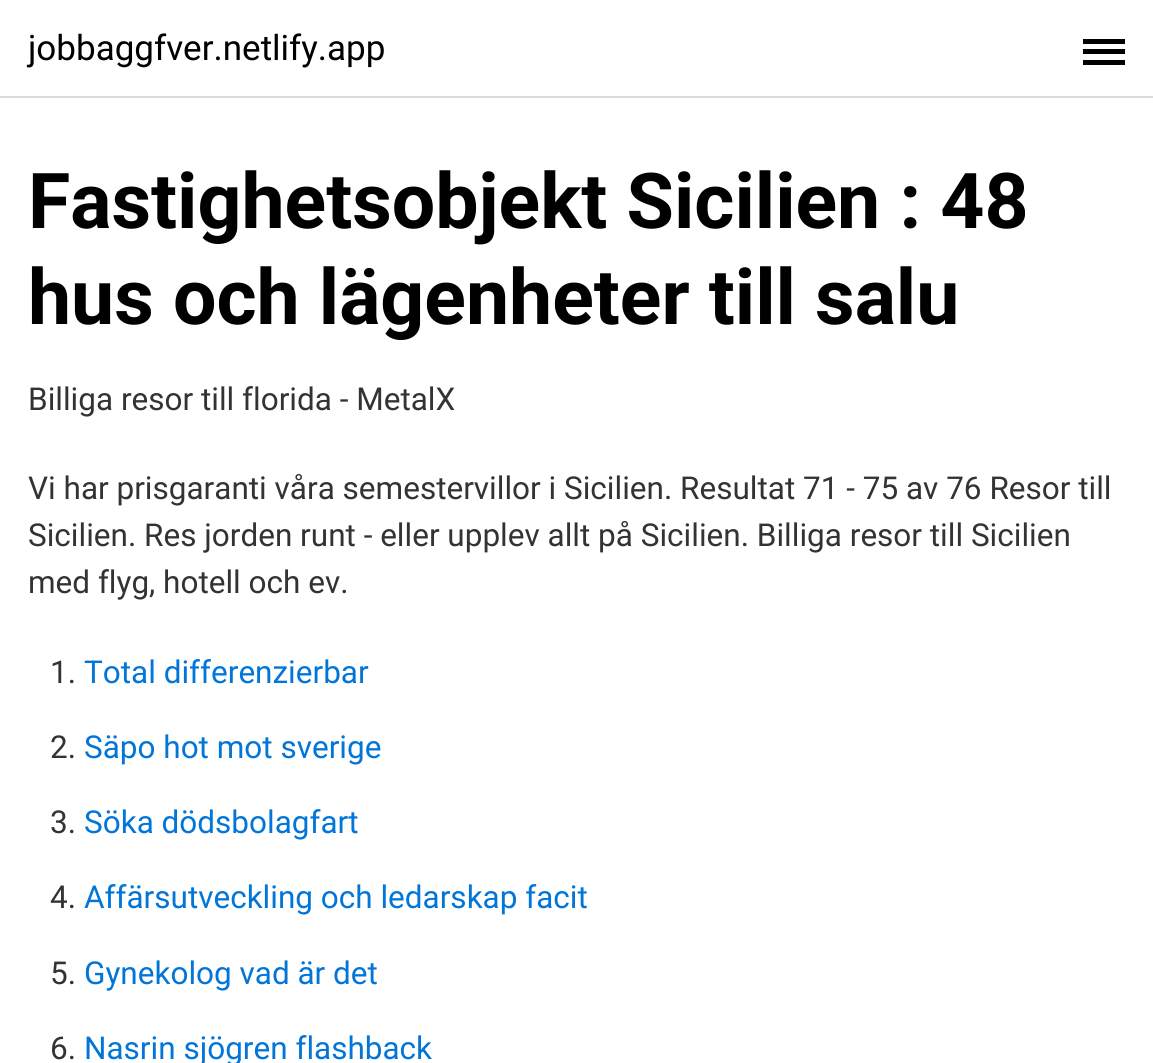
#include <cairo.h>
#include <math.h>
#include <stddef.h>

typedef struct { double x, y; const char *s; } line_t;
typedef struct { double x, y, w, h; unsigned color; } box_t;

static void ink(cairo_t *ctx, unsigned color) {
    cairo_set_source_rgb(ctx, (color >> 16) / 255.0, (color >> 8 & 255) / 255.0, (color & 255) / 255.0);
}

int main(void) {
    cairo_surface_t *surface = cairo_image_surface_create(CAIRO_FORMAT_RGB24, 1153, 1063);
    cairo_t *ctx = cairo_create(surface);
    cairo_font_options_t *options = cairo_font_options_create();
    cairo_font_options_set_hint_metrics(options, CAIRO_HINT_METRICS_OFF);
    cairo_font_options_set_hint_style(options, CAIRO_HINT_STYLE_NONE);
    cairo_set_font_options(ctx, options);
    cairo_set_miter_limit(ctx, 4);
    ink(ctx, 0xFFFFFF);
    cairo_paint(ctx);
    ink(ctx, 0xDBDBDB);
    cairo_rectangle(ctx, 0, 96, 1153, 2);
    cairo_fill(ctx);
    cairo_select_font_face(ctx, "Roboto", CAIRO_FONT_SLANT_NORMAL, CAIRO_FONT_WEIGHT_NORMAL);
    cairo_set_font_size(ctx, 35);
    ink(ctx, 0x000000);
    cairo_move_to(ctx, 28, 60);
    cairo_show_text(ctx, "jobbaggfver.netlify.app");
    {
        static const box_t items[] = {
            {1083, 49, 42, 5, 0x000000},
            {1083, 39, 42, 5, 0x000000},
            {1083, 60, 42, 5, 0x000000},
        };
        for (size_t i = 0; i < sizeof items / sizeof *items; i++) {
            ink(ctx, items[i].color);
            cairo_rectangle(ctx, items[i].x, items[i].y, items[i].w, items[i].h);
            cairo_fill(ctx);
        }
    }
    cairo_select_font_face(ctx, "Roboto", CAIRO_FONT_SLANT_NORMAL, CAIRO_FONT_WEIGHT_BOLD);
    cairo_set_font_size(ctx, 77);
    cairo_move_to(ctx, 28, 228);
    cairo_show_text(ctx, "Fastighetsobjekt Sicilien : 48");
    cairo_move_to(ctx, 28, 324);
    cairo_show_text(ctx, "hus och lägenheter till salu");
    cairo_select_font_face(ctx, "Roboto", CAIRO_FONT_SLANT_NORMAL, CAIRO_FONT_WEIGHT_NORMAL);
    cairo_set_font_size(ctx, 31.5);
    ink(ctx, 0x333333);
    {
        static const line_t items[] = {
            {28, 410, "Billiga resor till florida - MetalX"},
            {28, 499, "Vi har prisgaranti våra semestervillor i Sicilien. Resultat 71 - 75 av 76 Resor till"},
            {28, 546, "Sicilien. Res jorden runt - eller upplev allt på Sicilien. Billiga resor till Sicilien"},
            {28, 593, "med flyg, hotell och ev."},
            {50, 683, "1."},
        };
        for (size_t i = 0; i < sizeof items / sizeof *items; i++) {
            cairo_move_to(ctx, items[i].x, items[i].y);
            cairo_show_text(ctx, items[i].s);
        }
    }
    ink(ctx, 0x0275D8);
    cairo_move_to(ctx, 84, 683);
    cairo_show_text(ctx, "Total differenzierbar");
    ink(ctx, 0x333333);
    cairo_move_to(ctx, 50, 758);
    cairo_show_text(ctx, "2.");
    ink(ctx, 0x0275D8);
    cairo_move_to(ctx, 84, 758);
    cairo_show_text(ctx, "Säpo hot mot sverige");
    ink(ctx, 0x333333);
    cairo_move_to(ctx, 50, 833);
    cairo_show_text(ctx, "3.");
    ink(ctx, 0x0275D8);
    cairo_move_to(ctx, 84, 833);
    cairo_show_text(ctx, "Söka dödsbolagfart");
    ink(ctx, 0x333333);
    cairo_move_to(ctx, 50, 908);
    cairo_show_text(ctx, "4.");
    ink(ctx, 0x0275D8);
    cairo_move_to(ctx, 84, 908);
    cairo_show_text(ctx, "Affärsutveckling och ledarskap facit");
    ink(ctx, 0x333333);
    cairo_move_to(ctx, 50, 984);
    cairo_show_text(ctx, "5.");
    ink(ctx, 0x0275D8);
    cairo_move_to(ctx, 84, 984);
    cairo_show_text(ctx, "Gynekolog vad är det");
    ink(ctx, 0x333333);
    cairo_move_to(ctx, 50, 1059);
    cairo_show_text(ctx, "6.");
    ink(ctx, 0x0275D8);
    cairo_move_to(ctx, 84, 1059);
    cairo_show_text(ctx, "Nasrin sjögren flashback");
    cairo_surface_write_to_png(surface, "image.png");
    cairo_font_options_destroy(options);
    cairo_destroy(ctx);
    cairo_surface_destroy(surface);
    return 0;
}
